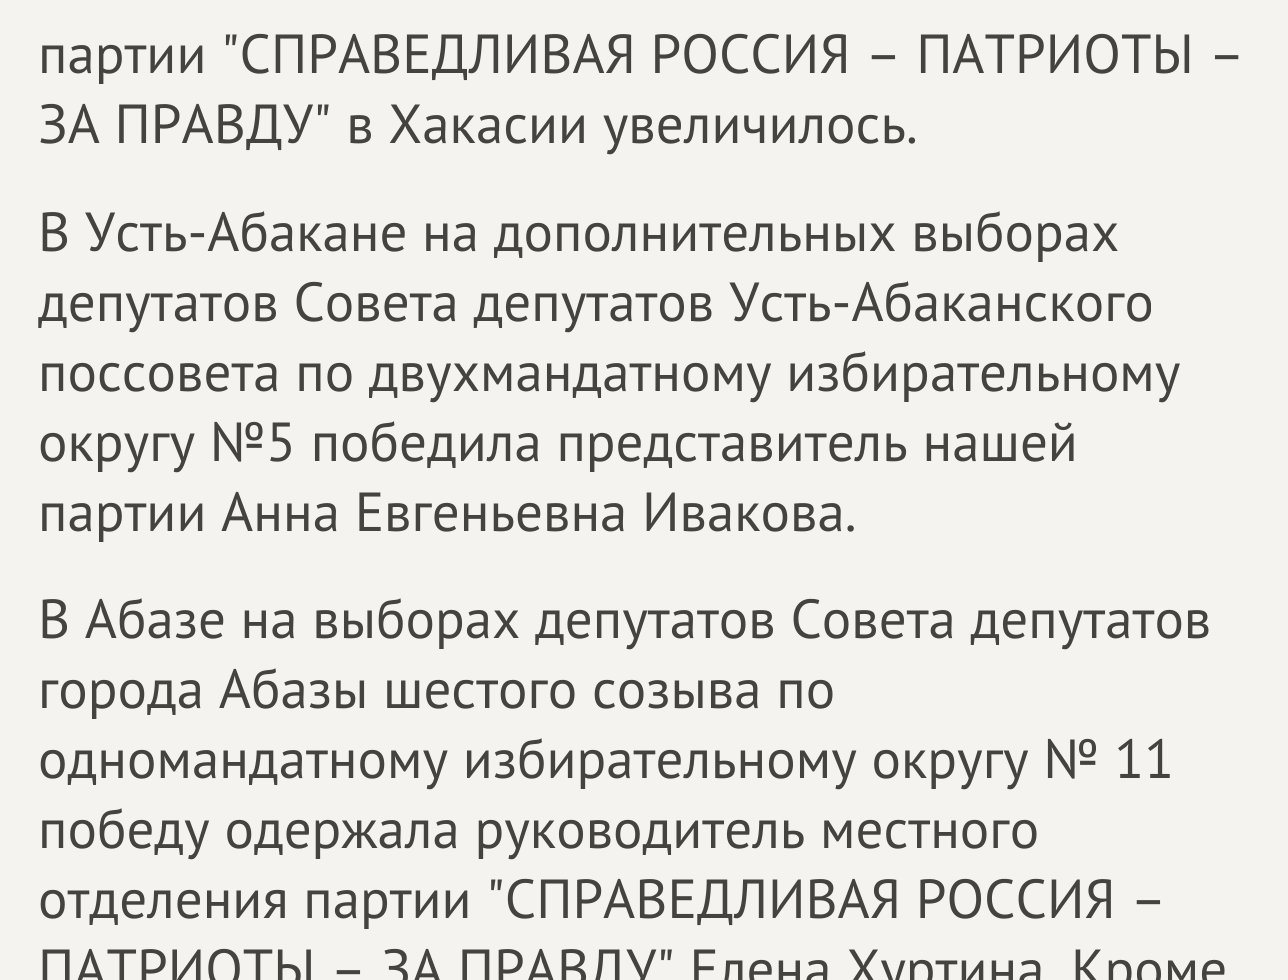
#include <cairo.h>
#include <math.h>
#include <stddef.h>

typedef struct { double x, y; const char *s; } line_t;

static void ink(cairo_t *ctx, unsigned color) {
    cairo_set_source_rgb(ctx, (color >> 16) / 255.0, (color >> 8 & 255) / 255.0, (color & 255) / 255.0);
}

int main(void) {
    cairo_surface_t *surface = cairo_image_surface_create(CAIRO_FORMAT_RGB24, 1288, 980);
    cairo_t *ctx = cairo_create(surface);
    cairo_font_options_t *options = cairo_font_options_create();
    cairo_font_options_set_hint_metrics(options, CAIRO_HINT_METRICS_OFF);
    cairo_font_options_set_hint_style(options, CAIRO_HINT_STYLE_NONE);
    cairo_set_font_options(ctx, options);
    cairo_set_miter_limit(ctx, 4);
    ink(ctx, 0xF4F3EF);
    cairo_paint(ctx);
    cairo_select_font_face(ctx, "PT Sans", CAIRO_FONT_SLANT_NORMAL, CAIRO_FONT_WEIGHT_NORMAL);
    cairo_set_font_size(ctx, 55);
    ink(ctx, 0x44433F);
    {
        static const line_t items[] = {
            {38, 73, "партии \"СПРАВЕДЛИВАЯ РОССИЯ – ПАТРИОТЫ –"},
            {38, 143, "ЗА ПРАВДУ\" в Хакасии увеличилось."},
            {38, 251, "В Усть-Абакане на дополнительных выборах"},
            {38, 321, "депутатов Совета депутатов Усть-Абаканского"},
            {38, 391, "поссовета по двухмандатному избирательному"},
            {38, 461, "округу №5 победила представитель нашей"},
            {38, 531, "партии Анна Евгеньевна Ивакова."},
            {38, 638, "В Абазе на выборах депутатов Совета депутатов"},
            {38, 708, "города Абазы шестого созыва по"},
            {38, 778, "одномандатному избирательному округу № 11"},
            {38, 848, "победу одержала руководитель местного"},
            {38, 918, "отделения партии \"СПРАВЕДЛИВАЯ РОССИЯ –"},
            {38, 988, "ПАТРИОТЫ – ЗА ПРАВДУ\" Елена Хуртина. Кроме"},
        };
        for (size_t i = 0; i < sizeof items / sizeof *items; i++) {
            cairo_move_to(ctx, items[i].x, items[i].y);
            cairo_show_text(ctx, items[i].s);
        }
    }
    cairo_surface_write_to_png(surface, "image.png");
    cairo_font_options_destroy(options);
    cairo_destroy(ctx);
    cairo_surface_destroy(surface);
    return 0;
}
